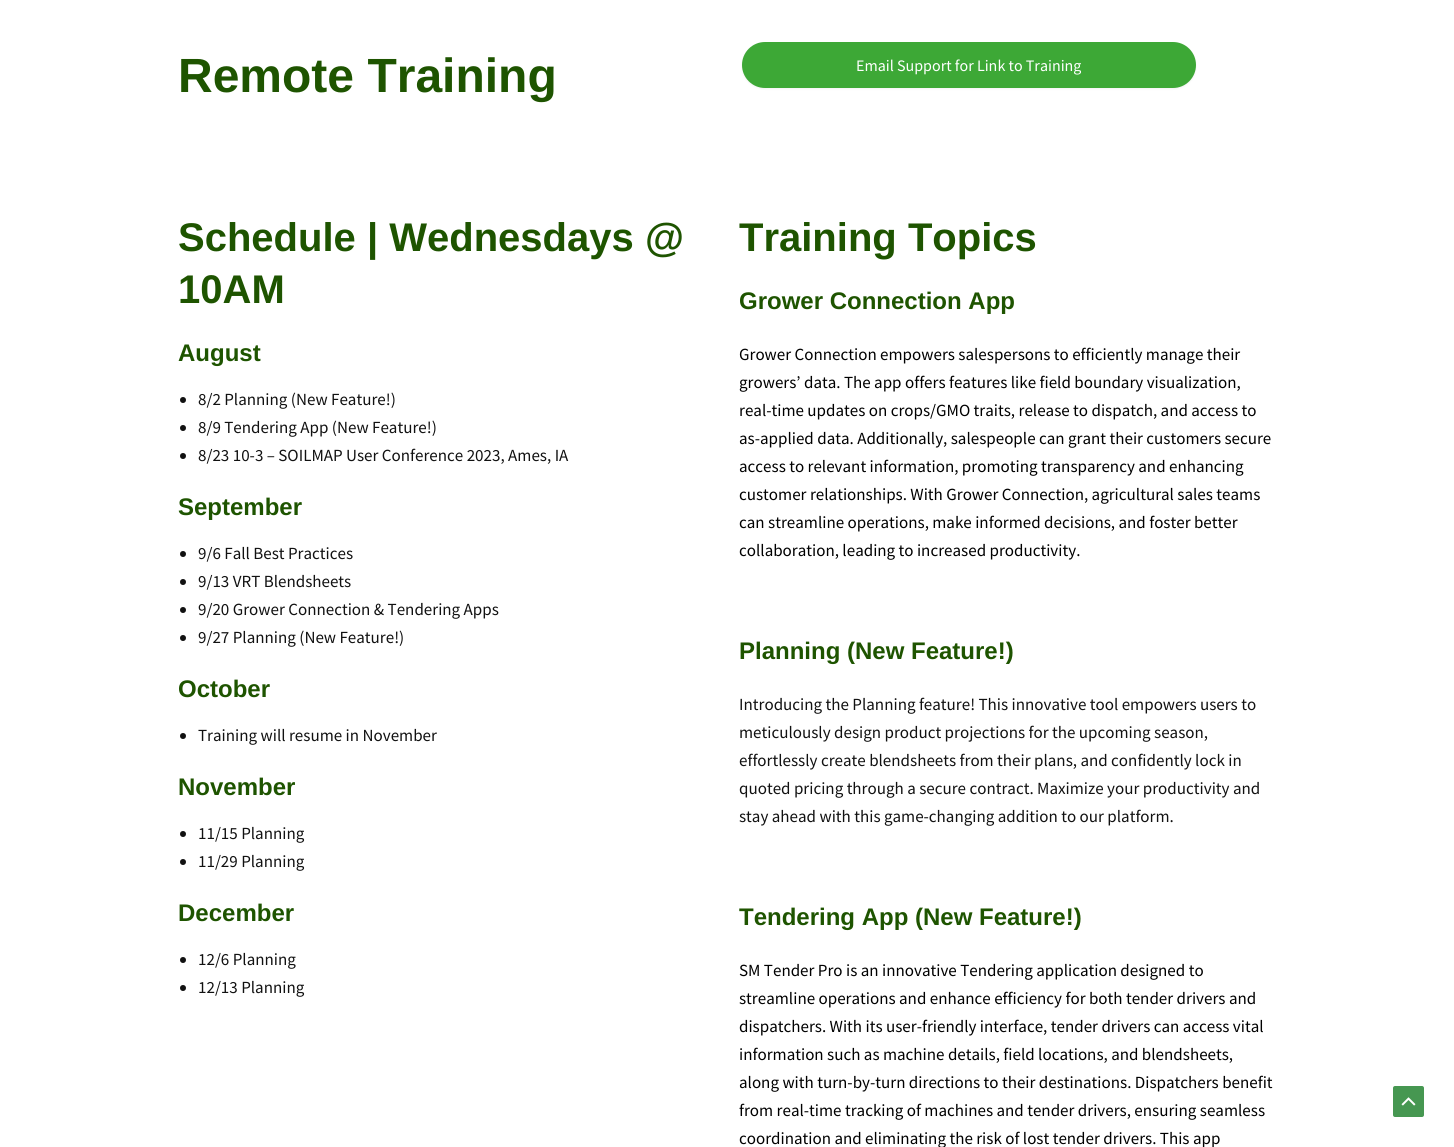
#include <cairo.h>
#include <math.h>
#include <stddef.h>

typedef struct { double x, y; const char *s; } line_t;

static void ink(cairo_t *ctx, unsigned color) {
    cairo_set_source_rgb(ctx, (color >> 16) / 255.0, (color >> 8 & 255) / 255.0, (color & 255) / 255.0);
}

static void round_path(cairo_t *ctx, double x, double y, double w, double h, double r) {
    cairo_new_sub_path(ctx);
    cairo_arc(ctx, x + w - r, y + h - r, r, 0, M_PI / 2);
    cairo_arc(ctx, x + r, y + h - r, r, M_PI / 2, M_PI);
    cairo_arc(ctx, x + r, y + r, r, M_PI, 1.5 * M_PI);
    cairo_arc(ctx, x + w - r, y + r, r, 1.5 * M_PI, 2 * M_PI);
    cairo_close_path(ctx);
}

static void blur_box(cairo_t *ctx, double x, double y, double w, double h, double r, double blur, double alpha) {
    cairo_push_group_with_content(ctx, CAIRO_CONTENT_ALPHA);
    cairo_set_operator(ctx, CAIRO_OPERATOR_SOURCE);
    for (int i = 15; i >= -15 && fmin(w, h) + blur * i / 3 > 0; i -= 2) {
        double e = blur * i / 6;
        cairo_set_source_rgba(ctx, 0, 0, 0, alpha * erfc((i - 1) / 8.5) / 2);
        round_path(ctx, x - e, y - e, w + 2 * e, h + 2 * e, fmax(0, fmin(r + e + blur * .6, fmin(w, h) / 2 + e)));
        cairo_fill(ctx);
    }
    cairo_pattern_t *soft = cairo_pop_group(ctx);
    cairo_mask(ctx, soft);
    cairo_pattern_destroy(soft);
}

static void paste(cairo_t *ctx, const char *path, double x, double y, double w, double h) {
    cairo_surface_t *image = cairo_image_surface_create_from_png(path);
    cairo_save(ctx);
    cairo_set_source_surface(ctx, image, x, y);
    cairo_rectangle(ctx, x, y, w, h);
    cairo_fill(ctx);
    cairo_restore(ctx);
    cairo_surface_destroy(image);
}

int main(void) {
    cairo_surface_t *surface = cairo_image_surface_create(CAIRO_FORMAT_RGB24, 1454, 1147);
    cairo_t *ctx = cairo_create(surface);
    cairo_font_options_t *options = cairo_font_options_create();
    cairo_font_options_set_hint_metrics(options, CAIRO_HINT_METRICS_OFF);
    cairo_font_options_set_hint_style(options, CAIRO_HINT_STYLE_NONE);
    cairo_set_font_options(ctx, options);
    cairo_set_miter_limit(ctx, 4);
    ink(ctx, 0xFFFFFF);
    cairo_paint(ctx);
    cairo_select_font_face(ctx, "Liberation Sans", CAIRO_FONT_SLANT_NORMAL, CAIRO_FONT_WEIGHT_BOLD);
    cairo_set_font_size(ctx, 48);
    ink(ctx, 0x1E5400);
    cairo_move_to(ctx, 178, 92);
    cairo_show_text(ctx, "Remote Training");
    ink(ctx, 0x000000);
    blur_box(ctx, 742, 43, 454, 46, 23, 1, 0.05);
    ink(ctx, 0x3DA836);
    round_path(ctx, 742, 42, 454, 46, 23);
    cairo_fill(ctx);
    cairo_select_font_face(ctx, "Source Sans Pro", CAIRO_FONT_SLANT_NORMAL, CAIRO_FONT_WEIGHT_NORMAL);
    cairo_set_font_size(ctx, 16);
    ink(ctx, 0xFFFFFF);
    cairo_move_to(ctx, 856, 71);
    cairo_show_text(ctx, "Email Support for Link to Training");
    cairo_select_font_face(ctx, "Liberation Sans", CAIRO_FONT_SLANT_NORMAL, CAIRO_FONT_WEIGHT_BOLD);
    cairo_set_font_size(ctx, 40);
    ink(ctx, 0x1E5400);
    cairo_move_to(ctx, 178, 251);
    cairo_show_text(ctx, "Schedule | Wednesdays @");
    cairo_move_to(ctx, 178, 303);
    cairo_show_text(ctx, "10AM");
    cairo_set_font_size(ctx, 24);
    cairo_move_to(ctx, 178, 361);
    cairo_show_text(ctx, "August");
    ink(ctx, 0x111111);
    cairo_new_path(ctx);
    cairo_arc(ctx, 183, 400, 3, 0, 2 * M_PI);
    cairo_fill(ctx);
    cairo_select_font_face(ctx, "Source Sans Pro", CAIRO_FONT_SLANT_NORMAL, CAIRO_FONT_WEIGHT_NORMAL);
    cairo_set_font_size(ctx, 17);
    cairo_move_to(ctx, 198, 405);
    cairo_show_text(ctx, "8/2 Planning (New Feature!)");
    cairo_new_path(ctx);
    cairo_arc(ctx, 183, 428, 3, 0, 2 * M_PI);
    cairo_fill(ctx);
    cairo_move_to(ctx, 198, 433);
    cairo_show_text(ctx, "8/9 Tendering App (New Feature!)");
    cairo_new_path(ctx);
    cairo_arc(ctx, 183, 456, 3, 0, 2 * M_PI);
    cairo_fill(ctx);
    cairo_move_to(ctx, 198, 461);
    cairo_show_text(ctx, "8/23 10-3 – SOILMAP User Conference 2023, Ames, IA");
    cairo_select_font_face(ctx, "Liberation Sans", CAIRO_FONT_SLANT_NORMAL, CAIRO_FONT_WEIGHT_BOLD);
    cairo_set_font_size(ctx, 24);
    ink(ctx, 0x1E5400);
    cairo_move_to(ctx, 178, 515);
    cairo_show_text(ctx, "September");
    ink(ctx, 0x111111);
    cairo_new_path(ctx);
    cairo_arc(ctx, 183, 554, 3, 0, 2 * M_PI);
    cairo_fill(ctx);
    cairo_select_font_face(ctx, "Source Sans Pro", CAIRO_FONT_SLANT_NORMAL, CAIRO_FONT_WEIGHT_NORMAL);
    cairo_set_font_size(ctx, 17);
    cairo_move_to(ctx, 198, 559);
    cairo_show_text(ctx, "9/6 Fall Best Practices");
    cairo_new_path(ctx);
    cairo_arc(ctx, 183, 582, 3, 0, 2 * M_PI);
    cairo_fill(ctx);
    cairo_move_to(ctx, 198, 587);
    cairo_show_text(ctx, "9/13 VRT Blendsheets");
    cairo_new_path(ctx);
    cairo_arc(ctx, 183, 610, 3, 0, 2 * M_PI);
    cairo_fill(ctx);
    cairo_move_to(ctx, 198, 615);
    cairo_show_text(ctx, "9/20 Grower Connection & Tendering Apps");
    cairo_new_path(ctx);
    cairo_arc(ctx, 183, 638, 3, 0, 2 * M_PI);
    cairo_fill(ctx);
    cairo_move_to(ctx, 198, 643);
    cairo_show_text(ctx, "9/27 Planning (New Feature!)");
    cairo_select_font_face(ctx, "Liberation Sans", CAIRO_FONT_SLANT_NORMAL, CAIRO_FONT_WEIGHT_BOLD);
    cairo_set_font_size(ctx, 24);
    ink(ctx, 0x1E5400);
    cairo_move_to(ctx, 178, 697);
    cairo_show_text(ctx, "October");
    ink(ctx, 0x111111);
    cairo_new_path(ctx);
    cairo_arc(ctx, 183, 736, 3, 0, 2 * M_PI);
    cairo_fill(ctx);
    cairo_select_font_face(ctx, "Source Sans Pro", CAIRO_FONT_SLANT_NORMAL, CAIRO_FONT_WEIGHT_NORMAL);
    cairo_set_font_size(ctx, 17);
    cairo_move_to(ctx, 198, 741);
    cairo_show_text(ctx, "Training will resume in November");
    cairo_select_font_face(ctx, "Liberation Sans", CAIRO_FONT_SLANT_NORMAL, CAIRO_FONT_WEIGHT_BOLD);
    cairo_set_font_size(ctx, 24);
    ink(ctx, 0x1E5400);
    cairo_move_to(ctx, 178, 795);
    cairo_show_text(ctx, "November");
    ink(ctx, 0x111111);
    cairo_new_path(ctx);
    cairo_arc(ctx, 183, 834, 3, 0, 2 * M_PI);
    cairo_fill(ctx);
    cairo_select_font_face(ctx, "Source Sans Pro", CAIRO_FONT_SLANT_NORMAL, CAIRO_FONT_WEIGHT_NORMAL);
    cairo_set_font_size(ctx, 17);
    cairo_move_to(ctx, 198, 839);
    cairo_show_text(ctx, "11/15 Planning");
    cairo_new_path(ctx);
    cairo_arc(ctx, 183, 862, 3, 0, 2 * M_PI);
    cairo_fill(ctx);
    cairo_move_to(ctx, 198, 867);
    cairo_show_text(ctx, "11/29 Planning");
    cairo_select_font_face(ctx, "Liberation Sans", CAIRO_FONT_SLANT_NORMAL, CAIRO_FONT_WEIGHT_BOLD);
    cairo_set_font_size(ctx, 24);
    ink(ctx, 0x1E5400);
    cairo_move_to(ctx, 178, 921);
    cairo_show_text(ctx, "December");
    ink(ctx, 0x111111);
    cairo_new_path(ctx);
    cairo_arc(ctx, 183, 960, 3, 0, 2 * M_PI);
    cairo_fill(ctx);
    cairo_select_font_face(ctx, "Source Sans Pro", CAIRO_FONT_SLANT_NORMAL, CAIRO_FONT_WEIGHT_NORMAL);
    cairo_set_font_size(ctx, 17);
    cairo_move_to(ctx, 198, 965);
    cairo_show_text(ctx, "12/6 Planning");
    cairo_new_path(ctx);
    cairo_arc(ctx, 183, 988, 3, 0, 2 * M_PI);
    cairo_fill(ctx);
    cairo_move_to(ctx, 198, 993);
    cairo_show_text(ctx, "12/13 Planning");
    cairo_select_font_face(ctx, "Liberation Sans", CAIRO_FONT_SLANT_NORMAL, CAIRO_FONT_WEIGHT_BOLD);
    cairo_set_font_size(ctx, 40);
    ink(ctx, 0x1E5400);
    cairo_move_to(ctx, 739, 251);
    cairo_show_text(ctx, "Training Topics");
    cairo_set_font_size(ctx, 24);
    cairo_move_to(ctx, 739, 309);
    cairo_show_text(ctx, "Grower Connection App");
    cairo_select_font_face(ctx, "Source Sans Pro", CAIRO_FONT_SLANT_NORMAL, CAIRO_FONT_WEIGHT_NORMAL);
    cairo_set_font_size(ctx, 17);
    ink(ctx, 0x000000);
    {
        static const line_t items[] = {
            {739, 360, "Grower Connection empowers salespersons to efficiently manage their"},
            {739, 388, "growers’ data. The app offers features like field boundary visualization,"},
            {739, 416, "real-time updates on crops/GMO traits, release to dispatch, and access to"},
            {739, 444, "as-applied data. Additionally, salespeople can grant their customers secure"},
            {739, 472, "access to relevant information, promoting transparency and enhancing"},
            {739, 500, "customer relationships. With Grower Connection, agricultural sales teams"},
            {739, 528, "can streamline operations, make informed decisions, and foster better"},
            {739, 556, "collaboration, leading to increased productivity."},
        };
        for (size_t i = 0; i < sizeof items / sizeof *items; i++) {
            cairo_move_to(ctx, items[i].x, items[i].y);
            cairo_show_text(ctx, items[i].s);
        }
    }
    cairo_select_font_face(ctx, "Liberation Sans", CAIRO_FONT_SLANT_NORMAL, CAIRO_FONT_WEIGHT_BOLD);
    cairo_set_font_size(ctx, 24);
    ink(ctx, 0x1E5400);
    cairo_move_to(ctx, 739, 659);
    cairo_show_text(ctx, "Planning (New Feature!)");
    cairo_select_font_face(ctx, "Source Sans Pro", CAIRO_FONT_SLANT_NORMAL, CAIRO_FONT_WEIGHT_NORMAL);
    cairo_set_font_size(ctx, 17);
    ink(ctx, 0x111111);
    {
        static const line_t items[] = {
            {739, 710, "Introducing the Planning feature! This innovative tool empowers users to"},
            {739, 738, "meticulously design product projections for the upcoming season,"},
            {739, 766, "effortlessly create blendsheets from their plans, and confidently lock in"},
            {739, 794, "quoted pricing through a secure contract. Maximize your productivity and"},
            {739, 822, "stay ahead with this game-changing addition to our platform."},
        };
        for (size_t i = 0; i < sizeof items / sizeof *items; i++) {
            cairo_move_to(ctx, items[i].x, items[i].y);
            cairo_show_text(ctx, items[i].s);
        }
    }
    cairo_select_font_face(ctx, "Liberation Sans", CAIRO_FONT_SLANT_NORMAL, CAIRO_FONT_WEIGHT_BOLD);
    cairo_set_font_size(ctx, 24);
    ink(ctx, 0x1E5400);
    cairo_move_to(ctx, 739, 925);
    cairo_show_text(ctx, "Tendering App (New Feature!)");
    cairo_select_font_face(ctx, "Source Sans Pro", CAIRO_FONT_SLANT_NORMAL, CAIRO_FONT_WEIGHT_NORMAL);
    cairo_set_font_size(ctx, 17);
    ink(ctx, 0x000000);
    {
        static const line_t items[] = {
            {739, 976, "SM Tender Pro is an innovative Tendering application designed to"},
            {739, 1004, "streamline operations and enhance efficiency for both tender drivers and"},
            {739, 1032, "dispatchers. With its user-friendly interface, tender drivers can access vital"},
            {739, 1060, "information such as machine details, field locations, and blendsheets,"},
            {739, 1088, "along with turn-by-turn directions to their destinations. Dispatchers benefit"},
            {739, 1116, "from real-time tracking of machines and tender drivers, ensuring seamless"},
            {739, 1144, "coordination and eliminating the risk of lost tender drivers. This app"},
        };
        for (size_t i = 0; i < sizeof items / sizeof *items; i++) {
            cairo_move_to(ctx, items[i].x, items[i].y);
            cairo_show_text(ctx, items[i].s);
        }
    }
    ink(ctx, 0x469751);
    round_path(ctx, 1393, 1086, 31, 31, 2);
    cairo_fill(ctx);
    paste(ctx, "media/1.png", 1401, 1097, 15, 9);
    cairo_surface_write_to_png(surface, "image.png");
    cairo_font_options_destroy(options);
    cairo_destroy(ctx);
    cairo_surface_destroy(surface);
    return 0;
}
